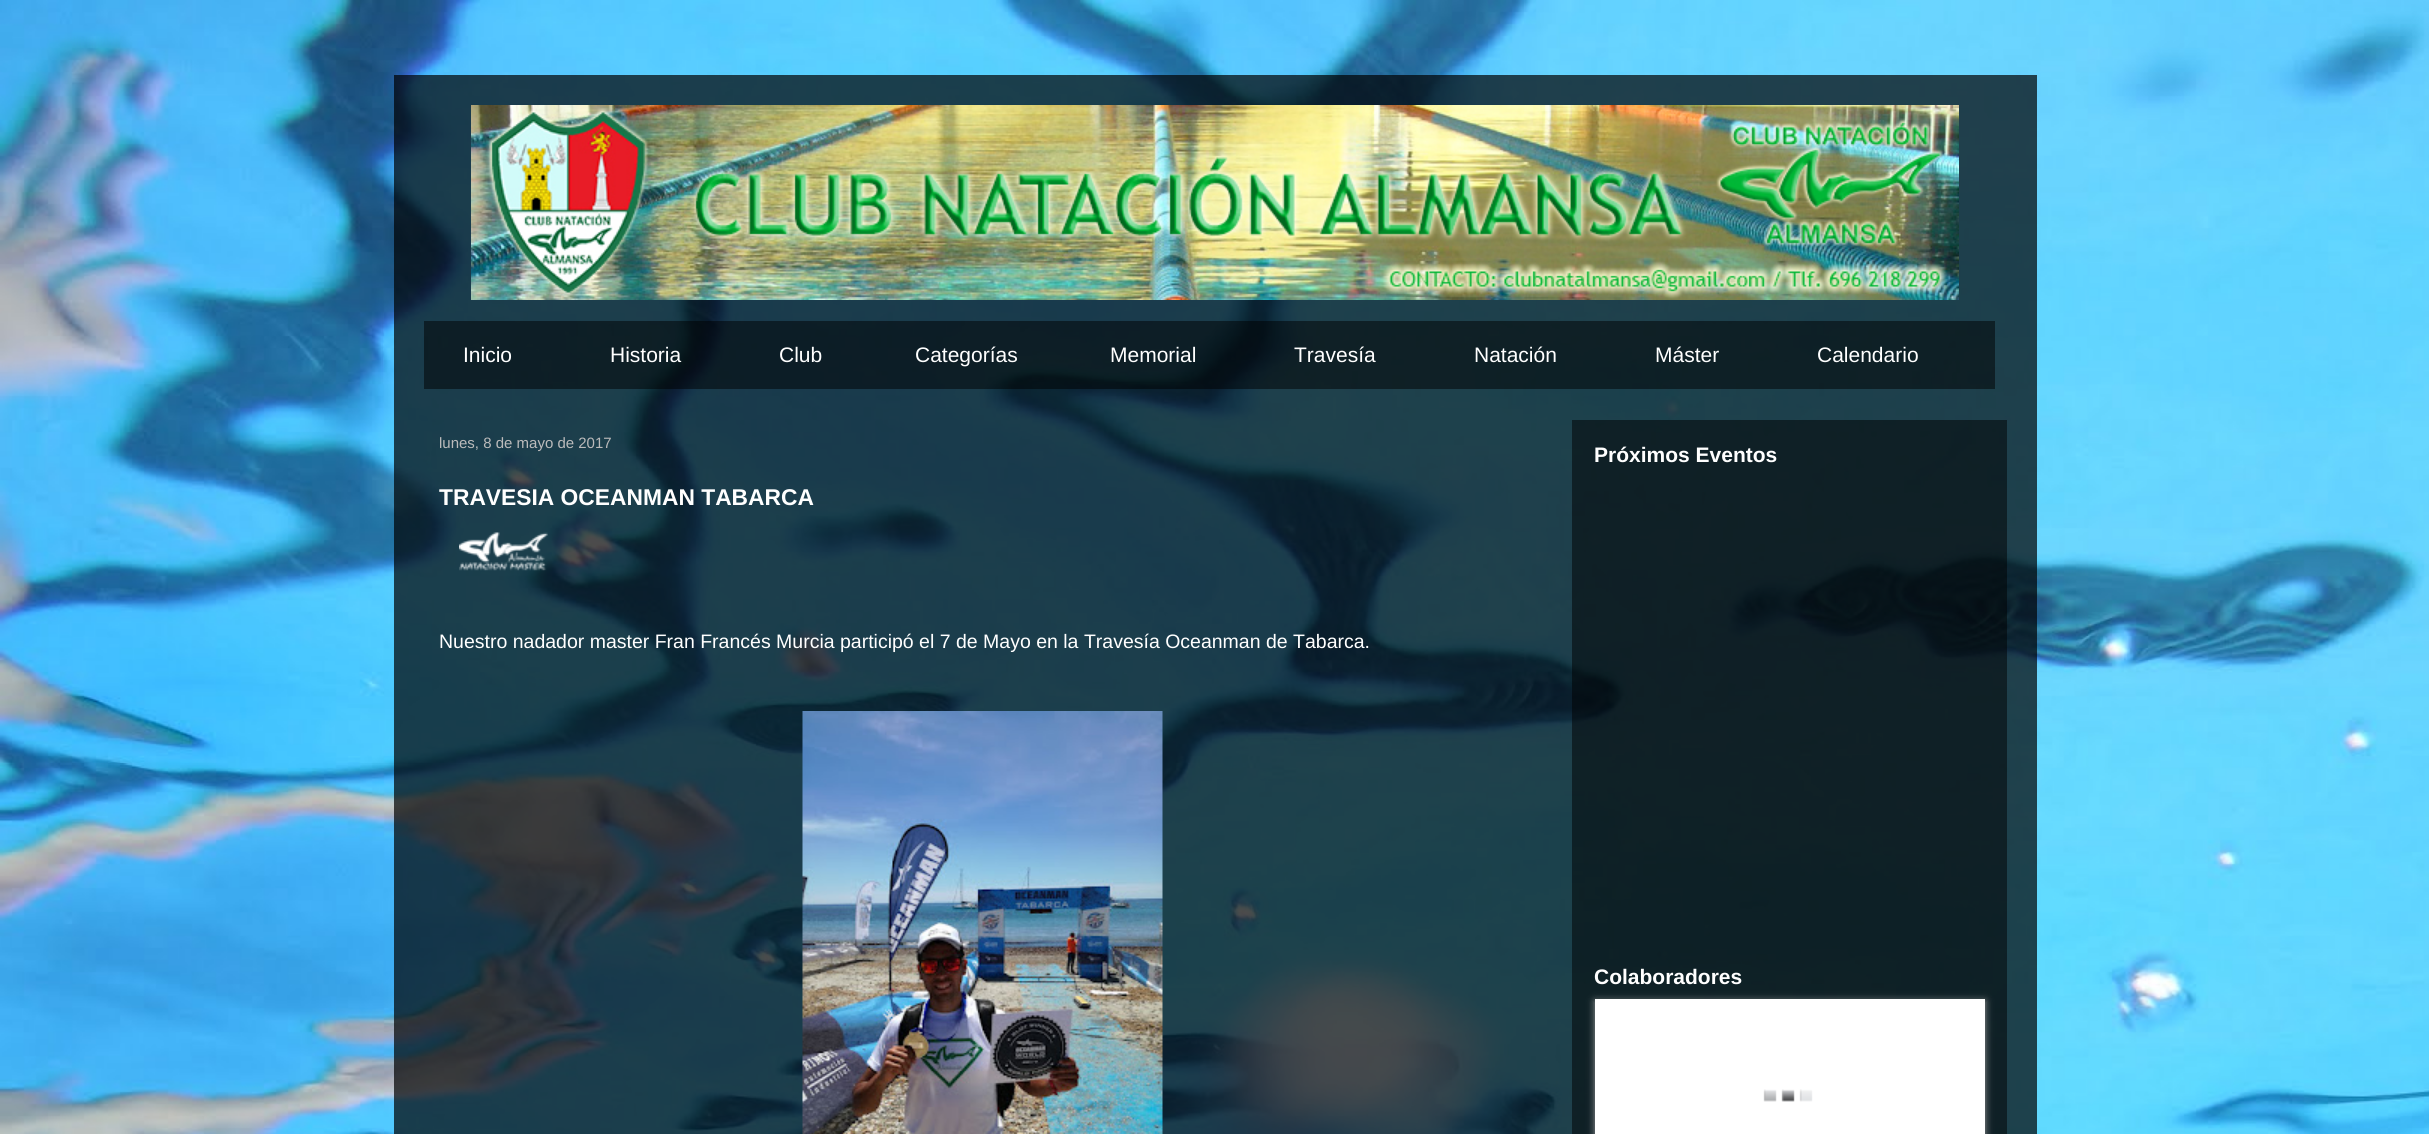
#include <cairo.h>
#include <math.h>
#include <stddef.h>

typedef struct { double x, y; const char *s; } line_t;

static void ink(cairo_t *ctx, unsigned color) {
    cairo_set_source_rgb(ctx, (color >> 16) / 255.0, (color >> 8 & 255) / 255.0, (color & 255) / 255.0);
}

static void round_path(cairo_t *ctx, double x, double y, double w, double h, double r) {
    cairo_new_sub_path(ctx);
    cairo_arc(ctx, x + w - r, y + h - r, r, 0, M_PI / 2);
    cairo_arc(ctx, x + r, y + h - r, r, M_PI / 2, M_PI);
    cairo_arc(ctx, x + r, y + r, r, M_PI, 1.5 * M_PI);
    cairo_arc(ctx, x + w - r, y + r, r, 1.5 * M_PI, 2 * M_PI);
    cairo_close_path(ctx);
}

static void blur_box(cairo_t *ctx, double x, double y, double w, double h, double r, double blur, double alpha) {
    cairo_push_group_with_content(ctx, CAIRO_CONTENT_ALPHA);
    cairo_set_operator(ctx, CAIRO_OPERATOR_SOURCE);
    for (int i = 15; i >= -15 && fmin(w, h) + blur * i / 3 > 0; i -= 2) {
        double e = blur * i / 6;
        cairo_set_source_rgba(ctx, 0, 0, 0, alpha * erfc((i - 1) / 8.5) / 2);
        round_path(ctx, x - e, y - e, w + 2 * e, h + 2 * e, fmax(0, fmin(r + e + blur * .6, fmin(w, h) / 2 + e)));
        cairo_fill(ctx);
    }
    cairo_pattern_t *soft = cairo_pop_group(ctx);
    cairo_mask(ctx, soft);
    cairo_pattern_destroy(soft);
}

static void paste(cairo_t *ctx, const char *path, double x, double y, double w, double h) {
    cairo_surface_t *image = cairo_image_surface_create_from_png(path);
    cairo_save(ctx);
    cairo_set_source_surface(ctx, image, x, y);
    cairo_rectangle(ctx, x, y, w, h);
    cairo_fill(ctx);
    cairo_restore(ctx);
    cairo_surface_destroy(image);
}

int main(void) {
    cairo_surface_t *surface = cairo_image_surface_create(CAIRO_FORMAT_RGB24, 2429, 1134);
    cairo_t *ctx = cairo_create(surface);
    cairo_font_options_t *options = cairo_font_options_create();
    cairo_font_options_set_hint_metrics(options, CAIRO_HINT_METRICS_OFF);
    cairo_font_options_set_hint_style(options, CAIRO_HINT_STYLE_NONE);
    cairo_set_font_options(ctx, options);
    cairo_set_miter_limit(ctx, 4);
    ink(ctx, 0xFFFFFF);
    cairo_paint(ctx);
    paste(ctx, "media/1.png", 0, 0, 2429, 1134);
    cairo_set_source_rgba(ctx, 0, 0, 0, 0.7);
    cairo_rectangle(ctx, 394, 75, 1643, 1059);
    cairo_fill(ctx);
    paste(ctx, "media/2.png", 471, 105, 1488, 195);
    cairo_set_source_rgba(ctx, 0, 0, 0, 0.5);
    cairo_rectangle(ctx, 424, 321, 1571, 68);
    cairo_fill(ctx);
    cairo_select_font_face(ctx, "Liberation Sans", CAIRO_FONT_SLANT_NORMAL, CAIRO_FONT_WEIGHT_NORMAL);
    cairo_set_font_size(ctx, 21);
    ink(ctx, 0xFFFFFF);
    {
        static const line_t items[] = {
            {463, 362, "Inicio"},
            {610, 362, "Historia"},
            {779, 362, "Club"},
            {915, 362, "Categorías"},
            {1110, 362, "Memorial"},
            {1294, 362, "Travesía"},
            {1474, 362, "Natación"},
            {1655, 362, "Máster"},
            {1817, 362, "Calendario"},
        };
        for (size_t i = 0; i < sizeof items / sizeof *items; i++) {
            cairo_move_to(ctx, items[i].x, items[i].y);
            cairo_show_text(ctx, items[i].s);
        }
    }
    cairo_set_font_size(ctx, 15);
    ink(ctx, 0xBBBBBB);
    cairo_move_to(ctx, 439, 448);
    cairo_show_text(ctx, "lunes, 8 de mayo de 2017");
    cairo_select_font_face(ctx, "Liberation Sans", CAIRO_FONT_SLANT_NORMAL, CAIRO_FONT_WEIGHT_BOLD);
    cairo_set_font_size(ctx, 22.8);
    ink(ctx, 0xFFFFFF);
    cairo_move_to(ctx, 439, 505);
    cairo_show_text(ctx, "TRAVESIA OCEANMAN TABARCA");
    paste(ctx, "media/3.png", 459, 532, 89, 39);
    cairo_select_font_face(ctx, "Liberation Sans", CAIRO_FONT_SLANT_NORMAL, CAIRO_FONT_WEIGHT_NORMAL);
    cairo_set_font_size(ctx, 19.5);
    cairo_move_to(ctx, 439, 648);
    cairo_show_text(ctx, "Nuestro nadador master Fran Francés Murcia participó el 7 de Mayo en la Travesía Oceanman de Tabarca.");
    paste(ctx, "media/4.png", 802, 711, 361, 423);
    cairo_set_source_rgba(ctx, 0, 0, 0, 0.5);
    cairo_rectangle(ctx, 1572, 420, 435, 714);
    cairo_fill(ctx);
    cairo_select_font_face(ctx, "Liberation Sans", CAIRO_FONT_SLANT_NORMAL, CAIRO_FONT_WEIGHT_BOLD);
    cairo_set_font_size(ctx, 21);
    ink(ctx, 0xFFFFFF);
    cairo_move_to(ctx, 1594, 462);
    cairo_show_text(ctx, "Próximos Eventos");
    cairo_move_to(ctx, 1594, 984);
    cairo_show_text(ctx, "Colaboradores");
    ink(ctx, 0x999999);
    blur_box(ctx, 1595, 1001, 390, 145, 0, 4, 1);
    ink(ctx, 0xFFFFFF);
    cairo_rectangle(ctx, 1595, 999, 390, 135);
    cairo_fill(ctx);
    paste(ctx, "media/5.png", 1763, 1089, 50, 13);
    cairo_surface_write_to_png(surface, "image.png");
    cairo_font_options_destroy(options);
    cairo_destroy(ctx);
    cairo_surface_destroy(surface);
    return 0;
}
